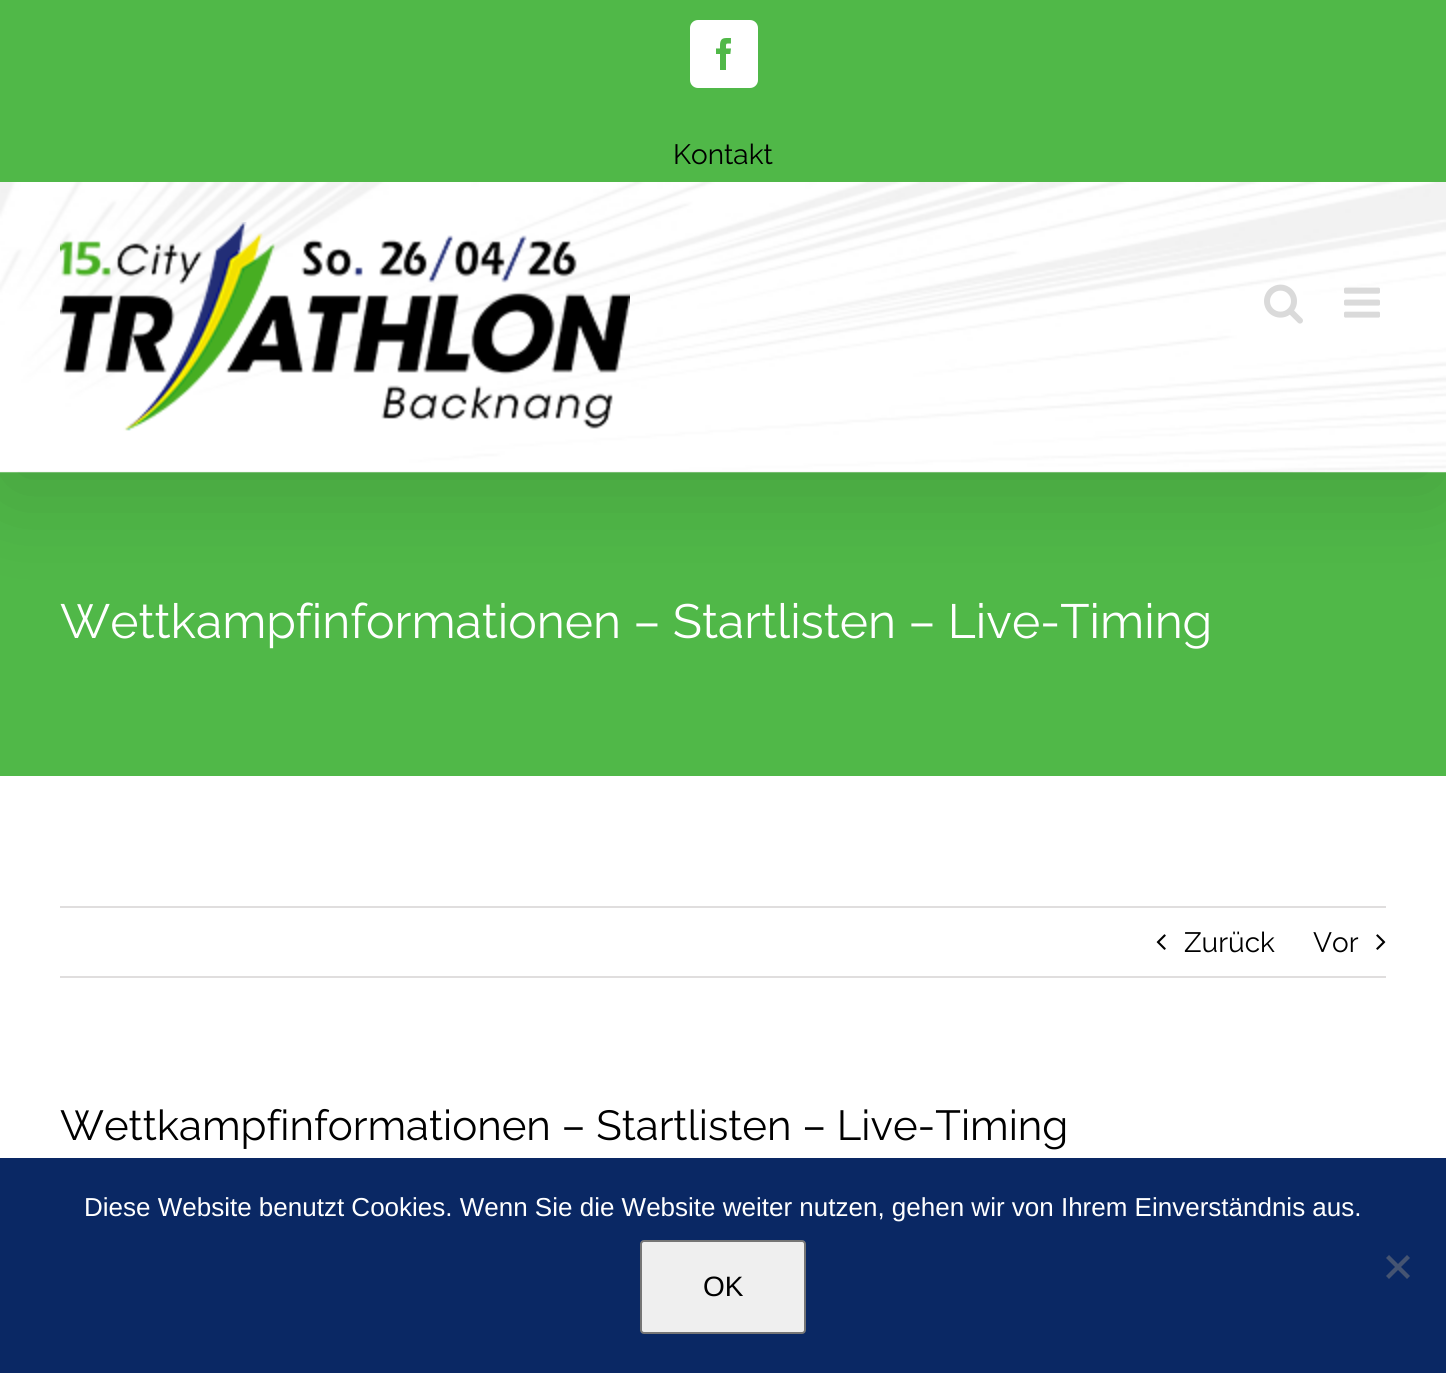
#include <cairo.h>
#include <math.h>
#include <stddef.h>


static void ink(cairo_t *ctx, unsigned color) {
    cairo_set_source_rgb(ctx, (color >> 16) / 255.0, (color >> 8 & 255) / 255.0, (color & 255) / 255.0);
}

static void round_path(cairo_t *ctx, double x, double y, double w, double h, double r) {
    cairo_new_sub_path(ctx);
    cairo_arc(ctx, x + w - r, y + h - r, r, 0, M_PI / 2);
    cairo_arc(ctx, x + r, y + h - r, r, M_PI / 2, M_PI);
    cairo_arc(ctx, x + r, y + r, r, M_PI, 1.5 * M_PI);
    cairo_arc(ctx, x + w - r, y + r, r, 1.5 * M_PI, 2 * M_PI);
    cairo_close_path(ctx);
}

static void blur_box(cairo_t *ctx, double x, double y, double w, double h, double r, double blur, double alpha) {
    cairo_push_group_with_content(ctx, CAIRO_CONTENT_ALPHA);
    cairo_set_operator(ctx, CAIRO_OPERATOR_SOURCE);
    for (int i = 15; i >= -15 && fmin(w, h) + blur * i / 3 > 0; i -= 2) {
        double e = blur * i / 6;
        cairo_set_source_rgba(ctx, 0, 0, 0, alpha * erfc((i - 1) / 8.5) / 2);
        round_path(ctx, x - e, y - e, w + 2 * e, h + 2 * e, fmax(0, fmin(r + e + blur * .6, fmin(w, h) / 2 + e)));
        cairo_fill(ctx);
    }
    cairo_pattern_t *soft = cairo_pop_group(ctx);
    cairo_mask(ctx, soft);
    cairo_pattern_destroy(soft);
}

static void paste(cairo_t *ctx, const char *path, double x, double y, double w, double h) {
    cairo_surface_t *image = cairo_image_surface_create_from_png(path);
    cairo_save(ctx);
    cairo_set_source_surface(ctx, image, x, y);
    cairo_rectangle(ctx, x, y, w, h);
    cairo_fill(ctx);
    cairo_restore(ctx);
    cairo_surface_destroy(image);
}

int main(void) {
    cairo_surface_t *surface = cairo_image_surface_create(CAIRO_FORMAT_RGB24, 1446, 1373);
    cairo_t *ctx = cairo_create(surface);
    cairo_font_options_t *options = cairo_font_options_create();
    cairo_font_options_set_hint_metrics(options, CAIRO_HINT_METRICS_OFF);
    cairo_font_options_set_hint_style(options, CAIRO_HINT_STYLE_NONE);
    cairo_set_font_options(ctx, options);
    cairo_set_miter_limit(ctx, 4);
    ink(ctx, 0xFFFFFF);
    cairo_paint(ctx);
    ink(ctx, 0x50B848);
    cairo_rectangle(ctx, 0, 472, 1446, 304);
    cairo_fill(ctx);
    ink(ctx, 0x000000);
    blur_box(ctx, 4, 24, 1438, 464, 0, 50, 0.14);
    ink(ctx, 0x50B848);
    cairo_rectangle(ctx, 0, 0, 1446, 182);
    cairo_fill(ctx);
    ink(ctx, 0xFFFFFF);
    round_path(ctx, 691, 21, 66, 66, 7);
    cairo_fill_preserve(ctx);
    cairo_stroke(ctx);
    paste(ctx, "media/1.png", 716, 38, 15, 32);
    cairo_select_font_face(ctx, "Raleway", CAIRO_FONT_SLANT_NORMAL, CAIRO_FONT_WEIGHT_NORMAL);
    cairo_set_font_size(ctx, 28);
    ink(ctx, 0x000000);
    cairo_move_to(ctx, 673, 164);
    cairo_show_text(ctx, "Kontakt");
    paste(ctx, "media/2.png", 0, 182, 1446, 291);
    paste(ctx, "media/3.png", 60, 222, 570, 209);
    paste(ctx, "media/4.png", 1264, 284, 39, 40);
    paste(ctx, "media/5.png", 1344, 287, 36, 31);
    cairo_set_font_size(ctx, 48);
    ink(ctx, 0xFFFFFF);
    cairo_move_to(ctx, 60, 638);
    cairo_show_text(ctx, "Wettkampfinformationen – Startlisten – Live-Timing");
    ink(ctx, 0xE0DEDE);
    cairo_rectangle(ctx, 60, 906, 1326, 2);
    cairo_fill(ctx);
    cairo_rectangle(ctx, 60, 976, 1326, 2);
    cairo_fill(ctx);
    paste(ctx, "media/6.png", 1156, 934, 10, 16);
    cairo_set_font_size(ctx, 28);
    ink(ctx, 0x000000);
    cairo_move_to(ctx, 1184, 952);
    cairo_show_text(ctx, "Zurück");
    cairo_move_to(ctx, 1313, 952);
    cairo_show_text(ctx, "Vor");
    paste(ctx, "media/7.png", 1376, 934, 10, 16);
    cairo_set_font_size(ctx, 42);
    cairo_move_to(ctx, 60, 1140);
    cairo_show_text(ctx, "Wettkampfinformationen – Startlisten – Live-Timing");
    ink(ctx, 0x0A2864);
    cairo_rectangle(ctx, 0, 1158, 1446, 215);
    cairo_fill(ctx);
    cairo_select_font_face(ctx, "Liberation Sans", CAIRO_FONT_SLANT_NORMAL, CAIRO_FONT_WEIGHT_NORMAL);
    cairo_set_font_size(ctx, 26);
    ink(ctx, 0xFFFFFF);
    cairo_move_to(ctx, 84, 1216);
    cairo_show_text(ctx, "Diese Website benutzt Cookies. Wenn Sie die Website weiter nutzen, gehen wir von Ihrem Einverständnis aus.");
    ink(ctx, 0x455472);
    cairo_new_path(ctx);
    cairo_move_to(ctx, 1407, 1255);
    cairo_line_to(ctx, 1410, 1258);
    cairo_line_to(ctx, 1389, 1279);
    cairo_line_to(ctx, 1386, 1276);
    cairo_close_path(ctx);
    cairo_fill(ctx);
    cairo_new_path(ctx);
    cairo_move_to(ctx, 1386, 1258);
    cairo_line_to(ctx, 1389, 1255);
    cairo_line_to(ctx, 1410, 1276);
    cairo_line_to(ctx, 1407, 1279);
    cairo_close_path(ctx);
    cairo_fill(ctx);
    ink(ctx, 0xEFEFEF);
    round_path(ctx, 641, 1241, 164, 92, 3);
    cairo_fill_preserve(ctx);
    ink(ctx, 0x767676);
    cairo_stroke(ctx);
    cairo_set_font_size(ctx, 28);
    ink(ctx, 0x000000);
    cairo_move_to(ctx, 703, 1296);
    cairo_show_text(ctx, "OK");
    cairo_surface_write_to_png(surface, "image.png");
    cairo_font_options_destroy(options);
    cairo_destroy(ctx);
    cairo_surface_destroy(surface);
    return 0;
}
